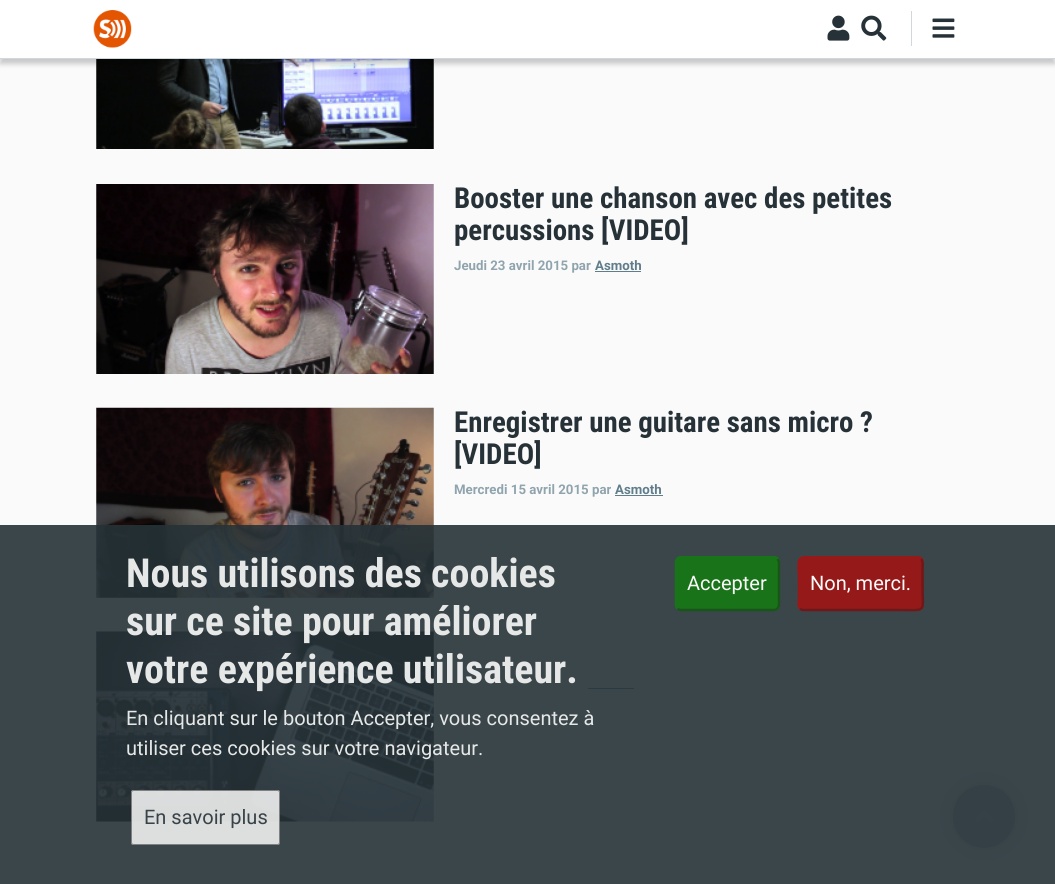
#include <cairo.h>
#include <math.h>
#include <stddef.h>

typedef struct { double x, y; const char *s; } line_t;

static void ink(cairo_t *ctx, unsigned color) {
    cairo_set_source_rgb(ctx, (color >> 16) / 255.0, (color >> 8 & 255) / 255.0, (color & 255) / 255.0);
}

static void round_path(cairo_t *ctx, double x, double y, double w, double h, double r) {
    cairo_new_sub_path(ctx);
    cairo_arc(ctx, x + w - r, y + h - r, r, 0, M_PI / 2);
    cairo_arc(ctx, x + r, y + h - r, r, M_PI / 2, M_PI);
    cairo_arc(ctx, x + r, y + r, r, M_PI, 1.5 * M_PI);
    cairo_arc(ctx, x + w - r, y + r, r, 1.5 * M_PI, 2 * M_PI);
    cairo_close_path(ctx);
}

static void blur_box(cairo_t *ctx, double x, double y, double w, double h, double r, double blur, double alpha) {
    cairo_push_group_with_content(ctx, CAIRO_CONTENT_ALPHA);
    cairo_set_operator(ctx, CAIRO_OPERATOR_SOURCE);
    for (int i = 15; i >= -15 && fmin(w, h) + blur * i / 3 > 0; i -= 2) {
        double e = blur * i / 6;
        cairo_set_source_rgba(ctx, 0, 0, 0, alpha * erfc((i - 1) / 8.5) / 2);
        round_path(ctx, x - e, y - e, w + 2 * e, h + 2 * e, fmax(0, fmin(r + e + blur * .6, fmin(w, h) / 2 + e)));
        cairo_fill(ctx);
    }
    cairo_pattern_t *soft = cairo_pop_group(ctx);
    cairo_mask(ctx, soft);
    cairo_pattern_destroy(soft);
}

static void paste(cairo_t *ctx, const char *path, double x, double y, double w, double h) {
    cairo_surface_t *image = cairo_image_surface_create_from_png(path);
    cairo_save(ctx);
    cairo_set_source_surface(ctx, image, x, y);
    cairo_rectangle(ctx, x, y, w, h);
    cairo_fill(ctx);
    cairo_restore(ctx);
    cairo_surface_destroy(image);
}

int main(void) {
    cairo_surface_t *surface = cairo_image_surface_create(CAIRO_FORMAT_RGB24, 1055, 884);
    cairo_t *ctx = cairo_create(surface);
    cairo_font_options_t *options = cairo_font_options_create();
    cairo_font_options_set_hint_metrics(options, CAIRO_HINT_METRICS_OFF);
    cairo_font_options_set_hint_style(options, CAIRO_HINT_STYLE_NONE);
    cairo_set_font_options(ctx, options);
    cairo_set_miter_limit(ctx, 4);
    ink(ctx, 0xFAFAFA);
    cairo_paint(ctx);
    paste(ctx, "media/5.png", 96, 59, 338, 90);
    ink(ctx, 0x000000);
    blur_box(ctx, 0, 5, 1055, 59, 0, 2.5, 0.2);
    ink(ctx, 0xFFFFFF);
    cairo_rectangle(ctx, 0, 0, 1055, 58);
    cairo_fill(ctx);
    ink(ctx, 0xCFD8DC);
    cairo_rectangle(ctx, 0, 58, 1055, 1);
    cairo_fill(ctx);
    paste(ctx, "media/1.png", 93, 10, 39, 38);
    paste(ctx, "media/2.png", 827, 15, 23, 26);
    paste(ctx, "media/3.png", 861, 15, 26, 26);
    cairo_rectangle(ctx, 911, 11, 1, 35);
    cairo_fill(ctx);
    paste(ctx, "media/4.png", 932, 18, 23, 20);
    paste(ctx, "media/6.png", 96, 184, 338, 190);
    cairo_select_font_face(ctx, "Roboto Condensed", CAIRO_FONT_SLANT_NORMAL, CAIRO_FONT_WEIGHT_BOLD);
    cairo_set_font_size(ctx, 28.9);
    ink(ctx, 0x263238);
    cairo_move_to(ctx, 454, 208);
    cairo_show_text(ctx, "Booster une chanson avec des petites");
    cairo_move_to(ctx, 454, 240);
    cairo_show_text(ctx, "percussions [VIDEO]");
    cairo_select_font_face(ctx, "Roboto", CAIRO_FONT_SLANT_NORMAL, CAIRO_FONT_WEIGHT_BOLD);
    cairo_set_font_size(ctx, 13.25);
    ink(ctx, 0x90A4AE);
    cairo_move_to(ctx, 454, 270);
    cairo_show_text(ctx, "Jeudi 23 avril 2015 par");
    ink(ctx, 0x607D8B);
    cairo_move_to(ctx, 595, 270);
    cairo_show_text(ctx, "Asmoth");
    cairo_rectangle(ctx, 595, 271, 46, 1);
    cairo_fill(ctx);
    paste(ctx, "media/7.png", 96, 407, 338, 191);
    cairo_select_font_face(ctx, "Roboto Condensed", CAIRO_FONT_SLANT_NORMAL, CAIRO_FONT_WEIGHT_BOLD);
    cairo_set_font_size(ctx, 28.9);
    ink(ctx, 0x263238);
    cairo_move_to(ctx, 454, 432);
    cairo_show_text(ctx, "Enregistrer une guitare sans micro ?");
    cairo_move_to(ctx, 454, 464);
    cairo_show_text(ctx, "[VIDEO]");
    cairo_select_font_face(ctx, "Roboto", CAIRO_FONT_SLANT_NORMAL, CAIRO_FONT_WEIGHT_BOLD);
    cairo_set_font_size(ctx, 13.25);
    ink(ctx, 0x90A4AE);
    cairo_move_to(ctx, 454, 494);
    cairo_show_text(ctx, "Mercredi 15 avril 2015 par");
    ink(ctx, 0x607D8B);
    cairo_move_to(ctx, 615, 494);
    cairo_show_text(ctx, "Asmoth");
    cairo_rectangle(ctx, 615, 495, 48, 1);
    cairo_fill(ctx);
    paste(ctx, "media/8.png", 96, 631, 338, 191);
    cairo_rectangle(ctx, 588, 688, 46, 1);
    cairo_fill(ctx);
    ink(ctx, 0xBABEC0);
    blur_box(ctx, 953, 785, 62, 63, 31, 6, 0.5);
    ink(ctx, 0xBABEC0);
    round_path(ctx, 953, 785, 62, 63, 31);
    cairo_fill(ctx);
    paste(ctx, "media/9.png", 975, 810, 19, 13);
    cairo_set_source_rgba(ctx, 0.149, 0.196, 0.22, 0.9);
    cairo_rectangle(ctx, 0, 525, 1055, 359);
    cairo_fill(ctx);
    cairo_select_font_face(ctx, "Roboto Condensed", CAIRO_FONT_SLANT_NORMAL, CAIRO_FONT_WEIGHT_BOLD);
    cairo_set_font_size(ctx, 40);
    ink(ctx, 0xE6E7E7);
    {
        static const line_t items[] = {
            {126, 587, "Nous utilisons des cookies"},
            {126, 635, "sur ce site pour améliorer"},
            {126, 683, "votre expérience utilisateur."},
        };
        for (size_t i = 0; i < sizeof items / sizeof *items; i++) {
            cairo_move_to(ctx, items[i].x, items[i].y);
            cairo_show_text(ctx, items[i].s);
        }
    }
    cairo_select_font_face(ctx, "Roboto", CAIRO_FONT_SLANT_NORMAL, CAIRO_FONT_WEIGHT_NORMAL);
    cairo_set_font_size(ctx, 20);
    cairo_move_to(ctx, 126, 725);
    cairo_show_text(ctx, "En cliquant sur le bouton Accepter, vous consentez à");
    cairo_move_to(ctx, 126, 755);
    cairo_show_text(ctx, "utiliser ces cookies sur votre navigateur.");
    cairo_set_source_rgba(ctx, 0.937, 0.937, 0.937, 0.9);
    round_path(ctx, 131, 790, 149, 55, 2.5);
    cairo_fill(ctx);
    round_path(ctx, 131.5, 790.5, 148, 54, 2);
    cairo_set_source_rgba(ctx, 0.463, 0.463, 0.463, 0.9);
    cairo_set_line_width(ctx, 1);
    cairo_stroke(ctx);
    ink(ctx, 0x384348);
    cairo_move_to(ctx, 144, 824);
    cairo_show_text(ctx, "En savoir plus");
    ink(ctx, 0x197319);
    round_path(ctx, 675, 556, 105, 55, 6);
    cairo_fill(ctx);
    cairo_new_path(ctx);
    cairo_move_to(ctx, 777.5, 559);
    cairo_curve_to(ctx, 778, 560, 779, 561, 779, 562);
    cairo_line_to(ctx, 779, 605);
    cairo_curve_to(ctx, 779, 606.5, 778, 607.5, 777.5, 608.5);
    cairo_curve_to(ctx, 776.5, 609.5, 775.5, 610, 774, 610);
    cairo_line_to(ctx, 681, 610);
    cairo_curve_to(ctx, 679.5, 610, 678.5, 609.5, 677.5, 608.5);
    ink(ctx, 0x195519);
    cairo_set_line_width(ctx, 2.5);
    cairo_stroke(ctx);
    cairo_new_path(ctx);
    cairo_move_to(ctx, 677.5, 608.5);
    cairo_curve_to(ctx, 677, 607.5, 676, 606.5, 676, 605);
    cairo_line_to(ctx, 676, 562);
    cairo_curve_to(ctx, 676, 561, 677, 560, 677.5, 559);
    cairo_curve_to(ctx, 678.5, 558, 679.5, 557.5, 681, 557.5);
    cairo_line_to(ctx, 774, 557.5);
    cairo_curve_to(ctx, 775.5, 557.5, 776.5, 558, 777.5, 559);
    ink(ctx, 0x197319);
    cairo_stroke(ctx);
    ink(ctx, 0xFAFAFA);
    cairo_move_to(ctx, 687, 590);
    cairo_show_text(ctx, "Accepter");
    ink(ctx, 0x961919);
    round_path(ctx, 798, 556, 126, 55, 6);
    cairo_fill(ctx);
    cairo_new_path(ctx);
    cairo_move_to(ctx, 921, 559);
    cairo_curve_to(ctx, 923.5, 561.5, 922.5, 567, 922.5, 569.5);
    cairo_line_to(ctx, 922.5, 584);
    cairo_curve_to(ctx, 922.5, 613.5, 928, 610, 898.5, 610);
    cairo_line_to(ctx, 803.5, 610);
    cairo_curve_to(ctx, 802, 610, 801, 609.5, 800, 608.5);
    ink(ctx, 0x6D1919);
    cairo_stroke(ctx);
    cairo_new_path(ctx);
    cairo_move_to(ctx, 800, 608.5);
    cairo_curve_to(ctx, 797.5, 606, 799, 600.5, 799, 598);
    cairo_line_to(ctx, 799, 584);
    cairo_curve_to(ctx, 799, 554, 793, 557.5, 822.5, 557.5);
    cairo_line_to(ctx, 918, 557.5);
    cairo_curve_to(ctx, 919, 557.5, 920, 558, 921, 559);
    ink(ctx, 0x961919);
    cairo_stroke(ctx);
    ink(ctx, 0xFAFAFA);
    cairo_move_to(ctx, 810, 590);
    cairo_show_text(ctx, "Non, merci.");
    cairo_surface_write_to_png(surface, "image.png");
    cairo_font_options_destroy(options);
    cairo_destroy(ctx);
    cairo_surface_destroy(surface);
    return 0;
}
